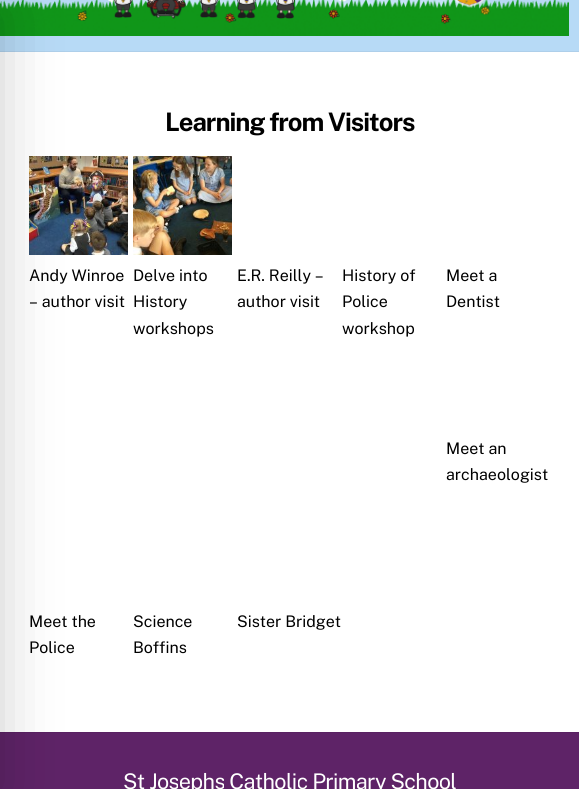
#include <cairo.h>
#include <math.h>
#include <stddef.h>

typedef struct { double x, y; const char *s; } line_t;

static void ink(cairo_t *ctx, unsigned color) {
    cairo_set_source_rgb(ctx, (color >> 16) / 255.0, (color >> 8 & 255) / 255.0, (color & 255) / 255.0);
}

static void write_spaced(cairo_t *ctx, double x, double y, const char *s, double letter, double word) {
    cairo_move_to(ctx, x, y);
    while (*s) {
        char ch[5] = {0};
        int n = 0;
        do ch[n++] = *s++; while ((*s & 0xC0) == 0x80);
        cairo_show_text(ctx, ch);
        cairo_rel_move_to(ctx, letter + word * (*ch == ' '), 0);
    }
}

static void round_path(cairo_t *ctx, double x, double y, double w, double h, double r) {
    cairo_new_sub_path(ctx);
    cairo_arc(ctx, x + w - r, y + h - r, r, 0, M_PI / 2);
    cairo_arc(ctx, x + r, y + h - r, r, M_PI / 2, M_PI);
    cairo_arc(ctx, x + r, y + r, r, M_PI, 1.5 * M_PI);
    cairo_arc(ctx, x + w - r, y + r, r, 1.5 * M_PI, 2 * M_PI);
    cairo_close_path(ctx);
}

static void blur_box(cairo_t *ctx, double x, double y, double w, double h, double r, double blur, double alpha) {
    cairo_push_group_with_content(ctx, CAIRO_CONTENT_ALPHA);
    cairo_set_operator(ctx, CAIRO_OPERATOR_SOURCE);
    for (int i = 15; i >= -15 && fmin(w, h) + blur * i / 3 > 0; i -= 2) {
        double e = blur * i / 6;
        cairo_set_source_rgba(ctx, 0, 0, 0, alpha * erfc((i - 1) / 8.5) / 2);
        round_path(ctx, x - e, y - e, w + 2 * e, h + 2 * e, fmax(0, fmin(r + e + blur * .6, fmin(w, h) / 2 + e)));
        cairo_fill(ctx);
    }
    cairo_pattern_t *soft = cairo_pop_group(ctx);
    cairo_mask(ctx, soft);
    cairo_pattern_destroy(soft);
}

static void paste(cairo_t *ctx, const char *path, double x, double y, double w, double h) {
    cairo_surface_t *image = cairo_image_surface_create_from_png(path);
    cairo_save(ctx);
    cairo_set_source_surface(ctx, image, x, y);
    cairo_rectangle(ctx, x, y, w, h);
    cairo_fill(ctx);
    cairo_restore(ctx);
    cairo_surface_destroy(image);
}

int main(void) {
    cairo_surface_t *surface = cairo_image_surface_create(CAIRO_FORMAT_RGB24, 579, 789);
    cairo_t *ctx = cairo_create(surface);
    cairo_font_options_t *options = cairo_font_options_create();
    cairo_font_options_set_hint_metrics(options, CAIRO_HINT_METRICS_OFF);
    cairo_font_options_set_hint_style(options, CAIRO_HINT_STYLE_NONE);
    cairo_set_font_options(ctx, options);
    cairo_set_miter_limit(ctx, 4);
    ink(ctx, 0xFFFFFF);
    cairo_paint(ctx);
    ink(ctx, 0xB7DAF6);
    cairo_rectangle(ctx, 0, 0, 579, 51);
    cairo_fill(ctx);
    ink(ctx, 0xAECFEA);
    cairo_rectangle(ctx, 0, 51, 579, 1);
    cairo_fill(ctx);
    paste(ctx, "media/1.png", 0, 0, 569, 36);
    paste(ctx, "media/2.png", 29, 156, 99, 99);
    ink(ctx, 0x5E2367);
    cairo_rectangle(ctx, 0, 733, 579, 56);
    cairo_fill(ctx);
    ink(ctx, 0x592162);
    cairo_rectangle(ctx, 0, 732, 579, 1);
    cairo_fill(ctx);
    ink(ctx, 0x000000);
    blur_box(ctx, -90, 10, 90, 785, 0, 30, 0.2);
    cairo_select_font_face(ctx, "Public Sans", CAIRO_FONT_SLANT_NORMAL, CAIRO_FONT_WEIGHT_BOLD);
    cairo_set_font_size(ctx, 25.5);
    ink(ctx, 0x000000);
    write_spaced(ctx, 165, 131, "Learning from Visitors", -1, 0);
    cairo_select_font_face(ctx, "Public Sans", CAIRO_FONT_SLANT_NORMAL, CAIRO_FONT_WEIGHT_NORMAL);
    cairo_set_font_size(ctx, 16);
    cairo_move_to(ctx, 29, 281);
    cairo_show_text(ctx, "Andy Winroe");
    cairo_move_to(ctx, 29, 307);
    cairo_show_text(ctx, "– author visit");
    paste(ctx, "media/3.png", 133, 156, 99, 99);
    {
        static const line_t items[] = {
            {133, 281, "Delve into"},
            {133, 307, "History"},
            {133, 334, "workshops"},
            {237, 281, "E.R. Reilly –"},
            {237, 307, "author visit"},
            {342, 281, "History of"},
            {342, 307, "Police"},
            {342, 334, "workshop"},
            {446, 281, "Meet a"},
            {446, 307, "Dentist"},
            {446, 454, "Meet an"},
            {446, 480, "archaeologist"},
            {29, 627, "Meet the"},
            {29, 653, "Police"},
            {133, 627, "Science"},
            {133, 653, "Boffins"},
            {237, 627, "Sister Bridget"},
        };
        for (size_t i = 0; i < sizeof items / sizeof *items; i++) {
            cairo_move_to(ctx, items[i].x, items[i].y);
            cairo_show_text(ctx, items[i].s);
        }
    }
    cairo_set_font_size(ctx, 21.6);
    ink(ctx, 0xFFFFFF);
    write_spaced(ctx, 123, 789, "St Josephs Catholic Primary School", -0.65, 0);
    cairo_surface_write_to_png(surface, "image.png");
    cairo_font_options_destroy(options);
    cairo_destroy(ctx);
    cairo_surface_destroy(surface);
    return 0;
}
